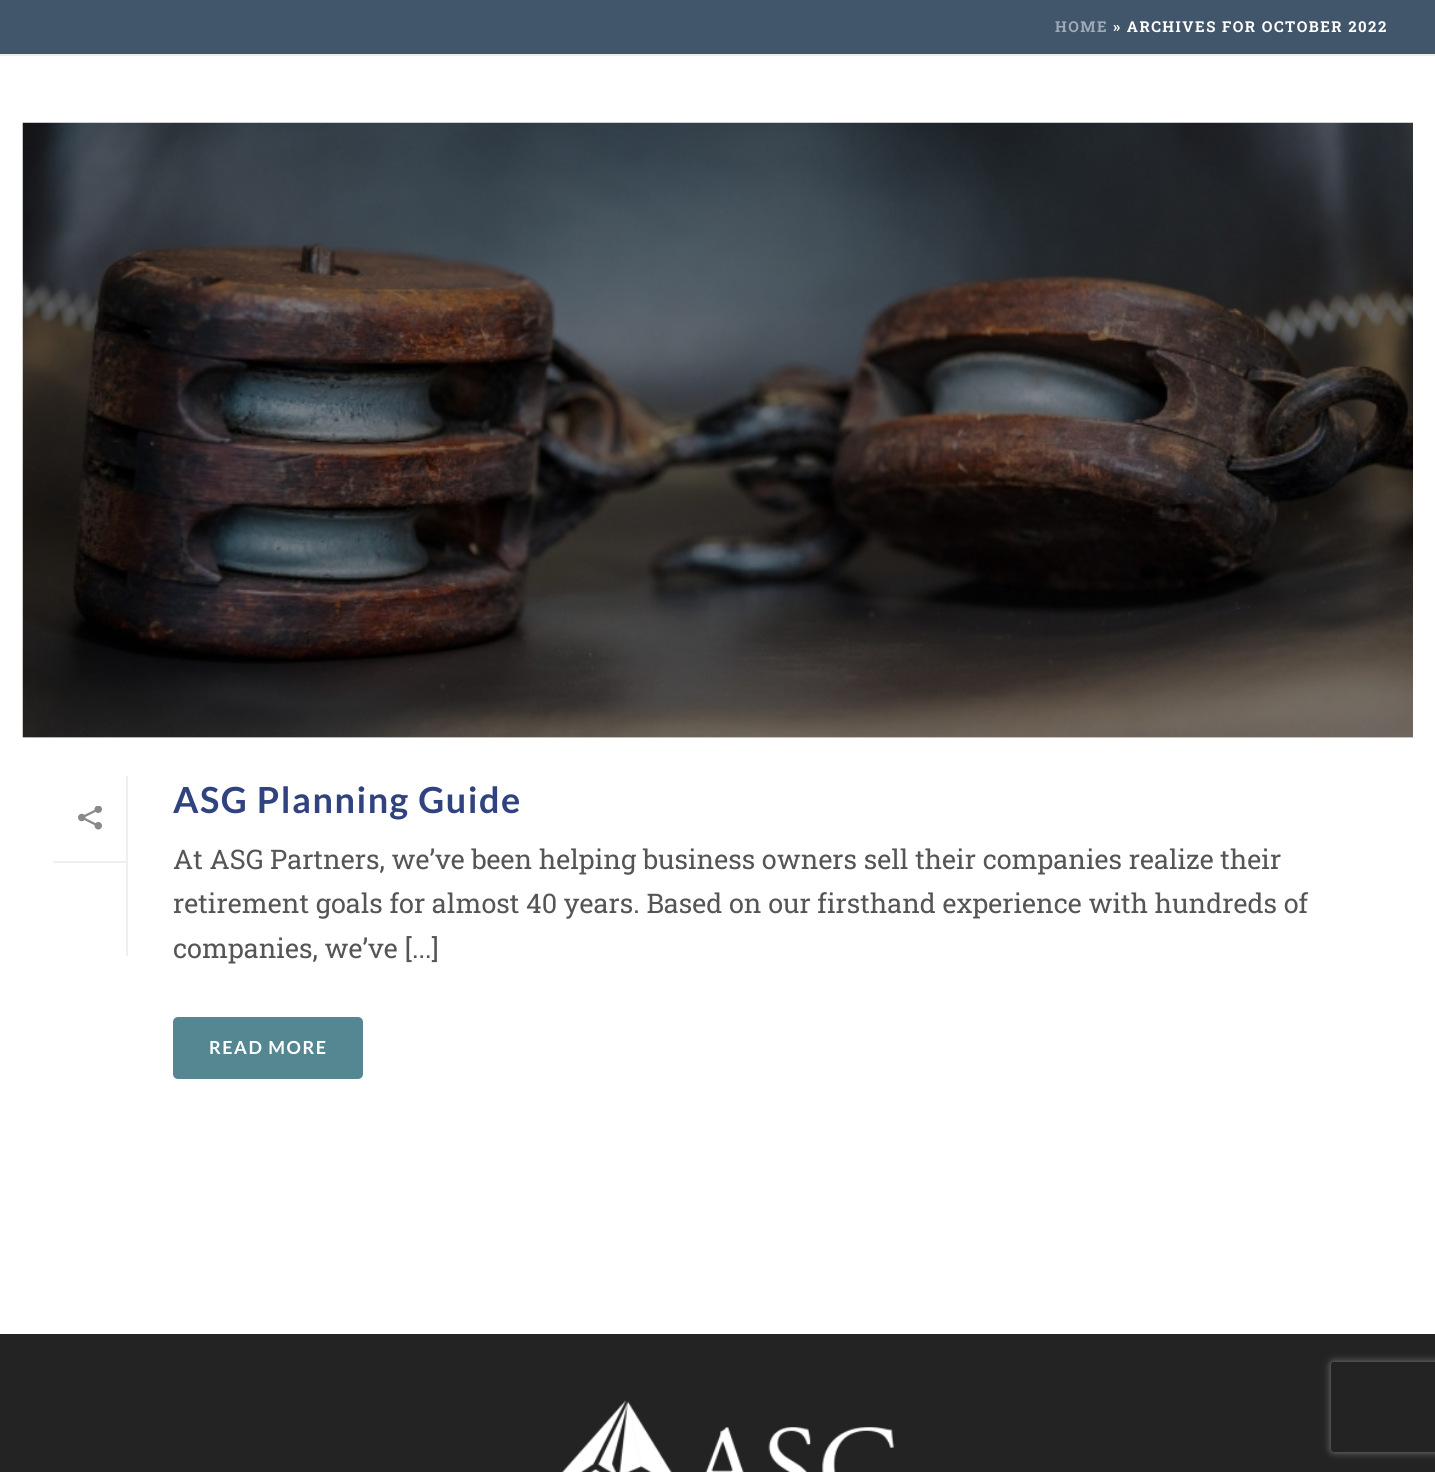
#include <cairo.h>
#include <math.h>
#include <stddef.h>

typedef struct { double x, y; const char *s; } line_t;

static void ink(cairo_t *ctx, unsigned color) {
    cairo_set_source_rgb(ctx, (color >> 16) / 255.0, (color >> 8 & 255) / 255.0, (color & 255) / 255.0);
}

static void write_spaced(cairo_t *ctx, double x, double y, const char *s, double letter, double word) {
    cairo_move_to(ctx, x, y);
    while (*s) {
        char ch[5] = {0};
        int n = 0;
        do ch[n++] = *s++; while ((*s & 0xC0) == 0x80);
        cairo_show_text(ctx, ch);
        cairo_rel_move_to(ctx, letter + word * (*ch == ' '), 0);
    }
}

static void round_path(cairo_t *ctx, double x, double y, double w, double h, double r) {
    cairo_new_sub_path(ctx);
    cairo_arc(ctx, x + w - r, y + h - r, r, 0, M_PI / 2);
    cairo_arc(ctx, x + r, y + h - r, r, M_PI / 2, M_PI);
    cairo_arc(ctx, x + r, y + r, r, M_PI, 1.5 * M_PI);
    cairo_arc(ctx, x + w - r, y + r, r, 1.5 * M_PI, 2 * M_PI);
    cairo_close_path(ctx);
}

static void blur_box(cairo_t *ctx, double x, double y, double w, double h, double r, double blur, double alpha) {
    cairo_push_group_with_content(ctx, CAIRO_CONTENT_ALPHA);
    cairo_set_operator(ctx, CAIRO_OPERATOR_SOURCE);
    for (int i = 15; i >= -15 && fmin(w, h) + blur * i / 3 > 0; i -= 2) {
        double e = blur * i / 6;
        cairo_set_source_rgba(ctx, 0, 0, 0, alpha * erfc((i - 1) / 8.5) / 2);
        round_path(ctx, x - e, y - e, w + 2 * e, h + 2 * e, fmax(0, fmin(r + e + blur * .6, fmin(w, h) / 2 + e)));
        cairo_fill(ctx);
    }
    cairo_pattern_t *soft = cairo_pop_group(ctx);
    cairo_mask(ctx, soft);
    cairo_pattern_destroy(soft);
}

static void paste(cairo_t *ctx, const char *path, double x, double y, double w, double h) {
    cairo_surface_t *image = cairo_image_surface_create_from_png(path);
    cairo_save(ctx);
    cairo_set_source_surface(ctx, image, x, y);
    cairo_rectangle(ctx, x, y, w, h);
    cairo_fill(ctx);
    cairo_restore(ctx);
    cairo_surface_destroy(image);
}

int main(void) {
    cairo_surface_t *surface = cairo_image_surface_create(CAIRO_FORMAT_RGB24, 1435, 1472);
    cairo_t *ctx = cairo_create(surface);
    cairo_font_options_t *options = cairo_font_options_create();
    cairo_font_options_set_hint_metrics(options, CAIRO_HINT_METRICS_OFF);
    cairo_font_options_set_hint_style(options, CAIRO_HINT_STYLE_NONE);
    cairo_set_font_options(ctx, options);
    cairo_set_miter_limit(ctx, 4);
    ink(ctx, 0xFFFFFF);
    cairo_paint(ctx);
    ink(ctx, 0x41556B);
    cairo_rectangle(ctx, 0, 0, 1435, 54);
    cairo_fill(ctx);
    ink(ctx, 0xEDEDED);
    cairo_rectangle(ctx, 0, 54, 1435, 2);
    cairo_fill(ctx);
    cairo_select_font_face(ctx, "Roboto Slab", CAIRO_FONT_SLANT_NORMAL, CAIRO_FONT_WEIGHT_BOLD);
    cairo_set_font_size(ctx, 15);
    ink(ctx, 0xA0AAB5);
    write_spaced(ctx, 1055, 32, "HOME", 1.5, 0);
    ink(ctx, 0xFFFFFF);
    write_spaced(ctx, 1113, 32, "» ARCHIVES FOR OCTOBER 2022", 1.5, 0);
    ink(ctx, 0xE0E0E0);
    cairo_rectangle(ctx, 23, 737, 1390, 1);
    cairo_fill(ctx);
    paste(ctx, "media/1.png", 22, 122, 1391, 616);
    ink(ctx, 0xEFEFEF);
    cairo_rectangle(ctx, 126, 776, 2, 180);
    cairo_fill(ctx);
    cairo_rectangle(ctx, 53, 861, 73, 2);
    cairo_fill(ctx);
    paste(ctx, "media/2.png", 78, 806, 24, 24);
    cairo_select_font_face(ctx, "Lato", CAIRO_FONT_SLANT_NORMAL, CAIRO_FONT_WEIGHT_BOLD);
    cairo_set_font_size(ctx, 36);
    ink(ctx, 0x30437E);
    write_spaced(ctx, 173, 813, "ASG Planning Guide", 1.5, 0);
    cairo_select_font_face(ctx, "Roboto Slab", CAIRO_FONT_SLANT_NORMAL, CAIRO_FONT_WEIGHT_NORMAL);
    cairo_set_font_size(ctx, 27);
    ink(ctx, 0x555555);
    {
        static const line_t items[] = {
            {173, 869, "At ASG Partners, we’ve been helping business owners sell their companies realize their"},
            {173, 913, "retirement goals for almost 40 years. Based on our firsthand experience with hundreds of"},
            {173, 958, "companies, we’ve [...]"},
        };
        for (size_t i = 0; i < sizeof items / sizeof *items; i++) {
            cairo_move_to(ctx, items[i].x, items[i].y);
            cairo_show_text(ctx, items[i].s);
        }
    }
    ink(ctx, 0x548791);
    round_path(ctx, 173, 1017, 190, 62, 5);
    cairo_fill(ctx);
    cairo_select_font_face(ctx, "Lato", CAIRO_FONT_SLANT_NORMAL, CAIRO_FONT_WEIGHT_BOLD);
    cairo_set_font_size(ctx, 18);
    ink(ctx, 0xFFFFFF);
    write_spaced(ctx, 209, 1054, "READ MORE", 1.5, 0);
    ink(ctx, 0x232323);
    cairo_rectangle(ctx, 0, 1334, 1435, 138);
    cairo_fill(ctx);
    paste(ctx, "media/3.png", 562, 1400, 333, 72);
    cairo_save(ctx);
    cairo_set_fill_rule(ctx, CAIRO_FILL_RULE_EVEN_ODD);
    cairo_new_path(ctx);
    cairo_move_to(ctx, 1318, 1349);
    cairo_line_to(ctx, 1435, 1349);
    cairo_line_to(ctx, 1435, 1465);
    cairo_line_to(ctx, 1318, 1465);
    cairo_close_path(ctx);
    cairo_move_to(ctx, 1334, 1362);
    cairo_line_to(ctx, 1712, 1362);
    cairo_curve_to(ctx, 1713.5, 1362, 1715, 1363.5, 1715, 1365);
    cairo_line_to(ctx, 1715, 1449);
    cairo_curve_to(ctx, 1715, 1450.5, 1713.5, 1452, 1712, 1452);
    cairo_line_to(ctx, 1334, 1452);
    cairo_curve_to(ctx, 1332.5, 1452, 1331, 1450.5, 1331, 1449);
    cairo_line_to(ctx, 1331, 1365);
    cairo_curve_to(ctx, 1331, 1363.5, 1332.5, 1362, 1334, 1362);
    cairo_close_path(ctx);
    cairo_clip(ctx);
    ink(ctx, 0x808080);
    blur_box(ctx, 1331, 1362, 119, 90, 3, 4, 1);
    cairo_restore(ctx);
    cairo_surface_write_to_png(surface, "image.png");
    cairo_font_options_destroy(options);
    cairo_destroy(ctx);
    cairo_surface_destroy(surface);
    return 0;
}
